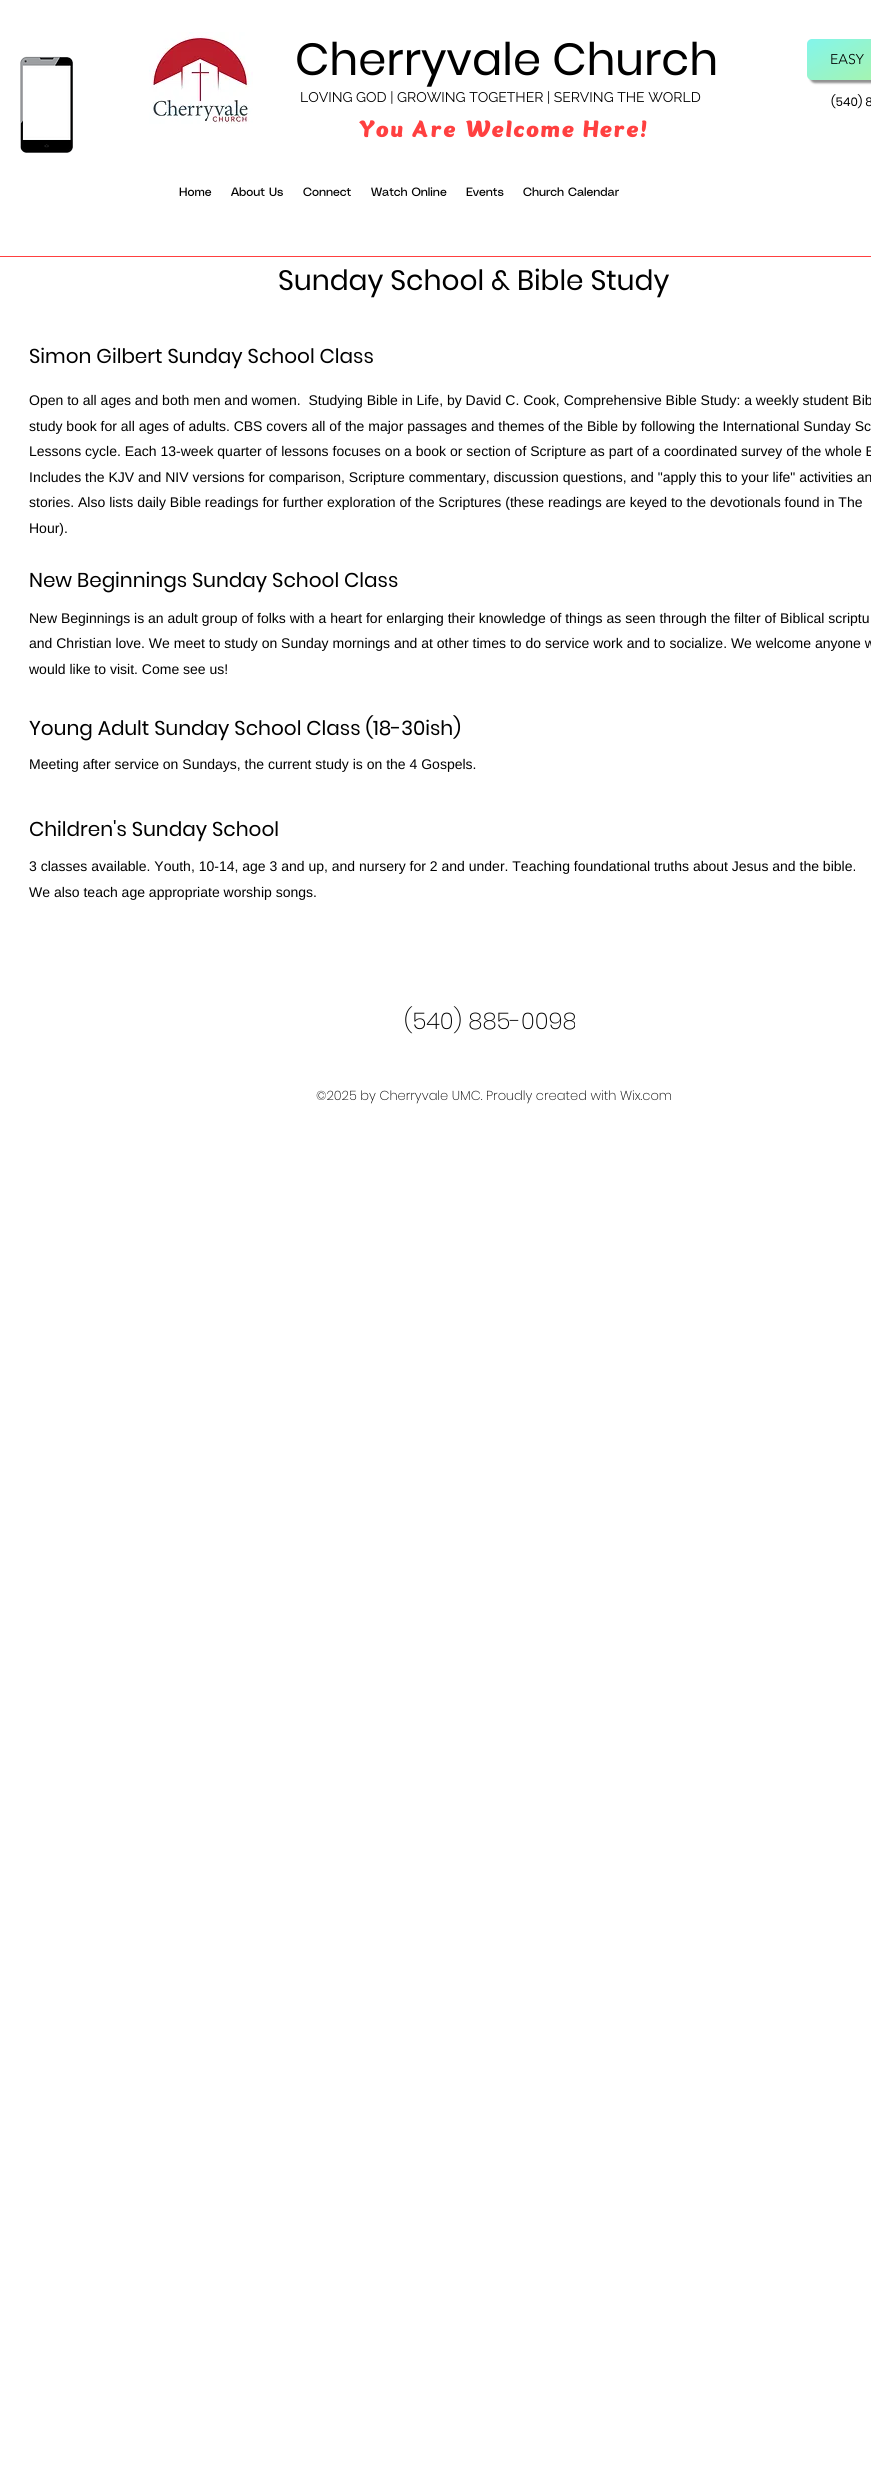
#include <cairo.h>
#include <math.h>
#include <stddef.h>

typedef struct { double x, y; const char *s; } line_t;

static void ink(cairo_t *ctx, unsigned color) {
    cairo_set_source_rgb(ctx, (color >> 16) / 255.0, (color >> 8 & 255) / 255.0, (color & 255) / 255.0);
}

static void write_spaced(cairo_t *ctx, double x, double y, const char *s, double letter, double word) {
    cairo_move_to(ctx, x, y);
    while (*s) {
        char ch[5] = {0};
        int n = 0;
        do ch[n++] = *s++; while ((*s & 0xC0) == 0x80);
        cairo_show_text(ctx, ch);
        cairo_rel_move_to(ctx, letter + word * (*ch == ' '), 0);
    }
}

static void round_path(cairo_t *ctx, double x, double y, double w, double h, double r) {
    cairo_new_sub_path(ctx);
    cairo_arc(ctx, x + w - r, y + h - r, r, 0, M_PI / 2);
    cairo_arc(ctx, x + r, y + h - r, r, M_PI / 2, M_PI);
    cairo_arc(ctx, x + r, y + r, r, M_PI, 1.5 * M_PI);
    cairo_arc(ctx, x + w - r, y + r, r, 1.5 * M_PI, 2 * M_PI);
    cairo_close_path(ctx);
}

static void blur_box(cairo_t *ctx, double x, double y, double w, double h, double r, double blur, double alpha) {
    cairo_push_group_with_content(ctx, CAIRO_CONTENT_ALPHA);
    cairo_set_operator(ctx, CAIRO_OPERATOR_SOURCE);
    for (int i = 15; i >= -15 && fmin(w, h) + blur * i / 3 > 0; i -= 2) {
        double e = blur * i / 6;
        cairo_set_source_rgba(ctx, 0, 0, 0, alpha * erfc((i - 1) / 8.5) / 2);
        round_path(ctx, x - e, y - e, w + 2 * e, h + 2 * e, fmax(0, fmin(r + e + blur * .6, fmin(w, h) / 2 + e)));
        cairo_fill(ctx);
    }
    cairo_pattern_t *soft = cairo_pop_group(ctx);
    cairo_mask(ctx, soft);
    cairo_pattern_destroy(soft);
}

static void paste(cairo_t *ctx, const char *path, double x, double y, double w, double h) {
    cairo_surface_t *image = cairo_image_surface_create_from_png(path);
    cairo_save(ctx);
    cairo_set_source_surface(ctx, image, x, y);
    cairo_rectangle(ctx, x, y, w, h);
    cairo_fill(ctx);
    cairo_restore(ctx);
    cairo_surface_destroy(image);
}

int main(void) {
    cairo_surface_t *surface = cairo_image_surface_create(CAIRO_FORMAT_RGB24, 871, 2475);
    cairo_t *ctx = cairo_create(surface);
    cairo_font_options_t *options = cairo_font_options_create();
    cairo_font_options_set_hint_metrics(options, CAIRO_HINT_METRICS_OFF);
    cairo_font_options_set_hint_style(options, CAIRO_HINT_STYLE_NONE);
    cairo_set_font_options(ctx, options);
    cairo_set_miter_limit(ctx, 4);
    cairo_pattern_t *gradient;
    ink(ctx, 0xFFFFFF);
    cairo_paint(ctx);
    paste(ctx, "media/1.png", 20, 56, 53, 97);
    paste(ctx, "media/2.png", 149, 32, 104, 92);
    cairo_select_font_face(ctx, "Poppins", CAIRO_FONT_SLANT_NORMAL, CAIRO_FONT_WEIGHT_NORMAL);
    cairo_set_font_size(ctx, 45);
    ink(ctx, 0x000000);
    cairo_move_to(ctx, 295, 75);
    cairo_show_text(ctx, "Cherryvale Church");
    cairo_select_font_face(ctx, "Raleway", CAIRO_FONT_SLANT_NORMAL, CAIRO_FONT_WEIGHT_NORMAL);
    cairo_set_font_size(ctx, 14);
    cairo_move_to(ctx, 300, 102);
    cairo_show_text(ctx, "LOVING GOD | GROWING TOGETHER | SERVING THE WORLD");
    cairo_select_font_face(ctx, "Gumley", CAIRO_FONT_SLANT_ITALIC, CAIRO_FONT_WEIGHT_NORMAL);
    cairo_set_font_size(ctx, 28);
    ink(ctx, 0xFF4040);
    write_spaced(ctx, 359, 137, "You Are Welcome Here!", 2.25, 0);
    cairo_select_font_face(ctx, "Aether", CAIRO_FONT_SLANT_NORMAL, CAIRO_FONT_WEIGHT_NORMAL);
    cairo_set_font_size(ctx, 12);
    ink(ctx, 0x000000);
    {
        static const line_t items[] = {
            {179, 196, "Home"},
            {231, 196, "About Us"},
            {303, 196, "Connect"},
            {371, 196, "Watch Online"},
            {466, 196, "Events"},
            {523, 196, "Church Calendar"},
        };
        for (size_t i = 0; i < sizeof items / sizeof *items; i++) {
            cairo_move_to(ctx, items[i].x, items[i].y);
            cairo_show_text(ctx, items[i].s);
        }
    }
    ink(ctx, 0x919191);
    blur_box(ctx, 810, 42, 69, 41, 5, 1, 1);
    gradient = cairo_pattern_create_linear(848, 16, 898, 103);
    cairo_pattern_add_color_stop_rgba(gradient, 0, 0.514, 0.961, 0.922, 1);
    cairo_pattern_add_color_stop_rgba(gradient, 1, 0.71, 0.953, 0.584, 1);
    cairo_set_source(ctx, gradient);
    cairo_pattern_destroy(gradient);
    round_path(ctx, 807, 39, 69, 41, 5);
    cairo_fill(ctx);
    cairo_select_font_face(ctx, "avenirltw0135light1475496 Light", CAIRO_FONT_SLANT_NORMAL, CAIRO_FONT_WEIGHT_NORMAL);
    cairo_set_font_size(ctx, 14);
    ink(ctx, 0x000000);
    cairo_move_to(ctx, 830, 64);
    cairo_show_text(ctx, "EASY");
    cairo_select_font_face(ctx, "Poppins", CAIRO_FONT_SLANT_NORMAL, CAIRO_FONT_WEIGHT_NORMAL);
    cairo_set_font_size(ctx, 12);
    cairo_move_to(ctx, 831, 106);
    cairo_show_text(ctx, "(540) 8");
    ink(ctx, 0xFF4040);
    cairo_rectangle(ctx, 0, 256, 871, 1);
    cairo_fill(ctx);
    cairo_set_font_size(ctx, 28);
    ink(ctx, 0x000000);
    cairo_move_to(ctx, 278, 290);
    cairo_show_text(ctx, "Sunday School & Bible Study");
    cairo_set_font_size(ctx, 20);
    cairo_move_to(ctx, 29, 363);
    cairo_show_text(ctx, "Simon Gilbert Sunday School Class");
    cairo_select_font_face(ctx, "Liberation Sans", CAIRO_FONT_SLANT_NORMAL, CAIRO_FONT_WEIGHT_NORMAL);
    cairo_set_font_size(ctx, 14);
    {
        static const line_t items[] = {
            {29, 405, "Open to all ages and both men and women.  Studying Bible in Life, by David C. Cook, Comprehensive Bible Study: a weekly student Bib"},
            {29, 431, "study book for all ages of adults. CBS covers all of the major passages and themes of the Bible by following the International Sunday Sc"},
            {29, 456, "Lessons cycle. Each 13-week quarter of lessons focuses on a book or section of Scripture as part of a coordinated survey of the whole B"},
            {29, 482, "Includes the KJV and NIV versions for comparison, Scripture commentary, discussion questions, and \"apply this to your life\" activities an"},
            {29, 507, "stories. Also lists daily Bible readings for further exploration of the Scriptures (these readings are keyed to the devotionals found in The"},
            {29, 533, "Hour)."},
        };
        for (size_t i = 0; i < sizeof items / sizeof *items; i++) {
            cairo_move_to(ctx, items[i].x, items[i].y);
            cairo_show_text(ctx, items[i].s);
        }
    }
    cairo_select_font_face(ctx, "Poppins", CAIRO_FONT_SLANT_NORMAL, CAIRO_FONT_WEIGHT_NORMAL);
    cairo_set_font_size(ctx, 20);
    cairo_move_to(ctx, 29, 587);
    cairo_show_text(ctx, "New Beginnings Sunday School Class");
    cairo_select_font_face(ctx, "Liberation Sans", CAIRO_FONT_SLANT_NORMAL, CAIRO_FONT_WEIGHT_NORMAL);
    cairo_set_font_size(ctx, 14);
    {
        static const line_t items[] = {
            {29, 623, "New Beginnings is an adult group of folks with a heart for enlarging their knowledge of things as seen through the filter of Biblical scriptu"},
            {29, 648, "and Christian love. We meet to study on Sunday mornings and at other times to do service work and to socialize. We welcome anyone w"},
            {29, 674, "would like to visit. Come see us!"},
        };
        for (size_t i = 0; i < sizeof items / sizeof *items; i++) {
            cairo_move_to(ctx, items[i].x, items[i].y);
            cairo_show_text(ctx, items[i].s);
        }
    }
    cairo_select_font_face(ctx, "Poppins", CAIRO_FONT_SLANT_NORMAL, CAIRO_FONT_WEIGHT_NORMAL);
    cairo_set_font_size(ctx, 20);
    cairo_move_to(ctx, 29, 735);
    cairo_show_text(ctx, "Young Adult Sunday School Class (18-30ish)");
    cairo_select_font_face(ctx, "Liberation Sans", CAIRO_FONT_SLANT_NORMAL, CAIRO_FONT_WEIGHT_NORMAL);
    cairo_set_font_size(ctx, 14);
    cairo_move_to(ctx, 29, 769);
    cairo_show_text(ctx, "Meeting after service on Sundays, the current study is on the 4 Gospels.");
    cairo_select_font_face(ctx, "Poppins", CAIRO_FONT_SLANT_NORMAL, CAIRO_FONT_WEIGHT_NORMAL);
    cairo_set_font_size(ctx, 20);
    cairo_move_to(ctx, 29, 836);
    cairo_show_text(ctx, "Children's Sunday School");
    cairo_select_font_face(ctx, "Liberation Sans", CAIRO_FONT_SLANT_NORMAL, CAIRO_FONT_WEIGHT_NORMAL);
    cairo_set_font_size(ctx, 14);
    cairo_move_to(ctx, 29, 871);
    cairo_show_text(ctx, "3 classes available. Youth, 10-14, age 3 and up, and nursery for 2 and under. Teaching foundational truths about Jesus and the bible.");
    cairo_move_to(ctx, 29, 897);
    cairo_show_text(ctx, "We also teach age appropriate worship songs.");
    cairo_select_font_face(ctx, "Poppins ExtraLight", CAIRO_FONT_SLANT_NORMAL, CAIRO_FONT_WEIGHT_NORMAL);
    cairo_set_font_size(ctx, 23);
    cairo_move_to(ctx, 404, 1029);
    cairo_show_text(ctx, "(540) 885-0098");
    cairo_set_font_size(ctx, 13);
    cairo_move_to(ctx, 316, 1100);
    cairo_show_text(ctx, "©2025 by Cherryvale UMC. Proudly created with Wix.com");
    cairo_surface_write_to_png(surface, "image.png");
    cairo_font_options_destroy(options);
    cairo_destroy(ctx);
    cairo_surface_destroy(surface);
    return 0;
}
